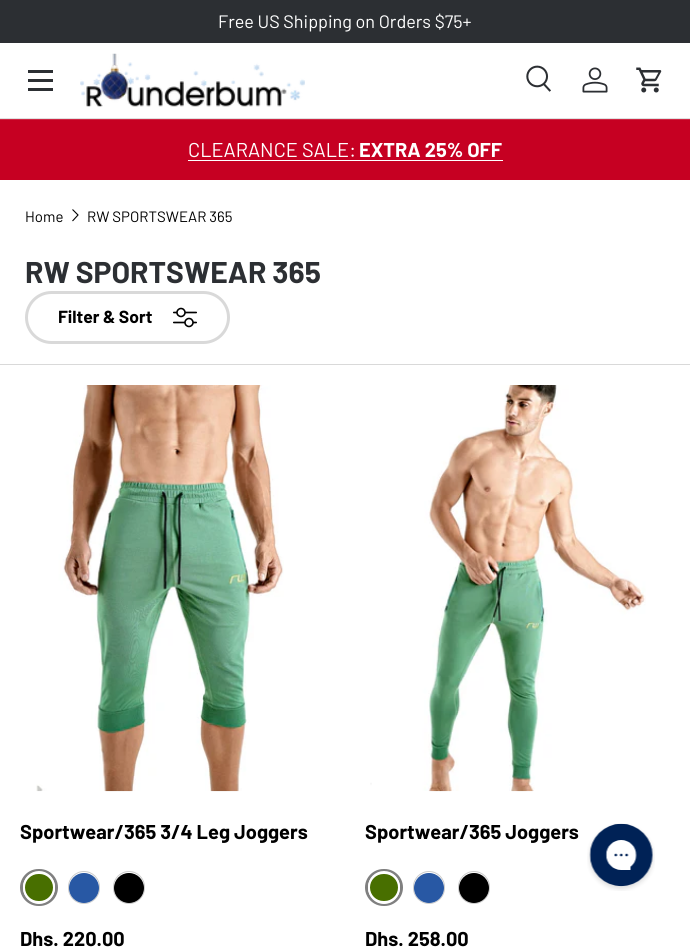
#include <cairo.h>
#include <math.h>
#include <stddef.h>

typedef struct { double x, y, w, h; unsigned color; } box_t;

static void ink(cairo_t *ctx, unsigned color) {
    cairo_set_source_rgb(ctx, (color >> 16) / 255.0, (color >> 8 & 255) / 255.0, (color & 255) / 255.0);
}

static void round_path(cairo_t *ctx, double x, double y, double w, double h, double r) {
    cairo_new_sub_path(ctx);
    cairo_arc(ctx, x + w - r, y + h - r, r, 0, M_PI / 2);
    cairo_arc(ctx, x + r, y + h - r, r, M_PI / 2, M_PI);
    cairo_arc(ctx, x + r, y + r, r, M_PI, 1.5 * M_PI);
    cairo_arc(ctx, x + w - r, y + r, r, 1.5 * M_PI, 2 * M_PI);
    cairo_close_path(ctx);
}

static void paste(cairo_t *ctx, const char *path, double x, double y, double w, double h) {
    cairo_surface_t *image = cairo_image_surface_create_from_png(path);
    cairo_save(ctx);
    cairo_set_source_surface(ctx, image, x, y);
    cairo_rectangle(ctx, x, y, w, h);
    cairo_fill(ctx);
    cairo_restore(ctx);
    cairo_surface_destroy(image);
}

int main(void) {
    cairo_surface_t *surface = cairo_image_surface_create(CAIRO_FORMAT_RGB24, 690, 951);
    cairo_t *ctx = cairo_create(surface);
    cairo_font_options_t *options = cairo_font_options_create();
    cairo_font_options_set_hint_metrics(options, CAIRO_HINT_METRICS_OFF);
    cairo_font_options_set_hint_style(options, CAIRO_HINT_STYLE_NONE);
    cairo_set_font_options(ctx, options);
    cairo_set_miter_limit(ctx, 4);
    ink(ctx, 0xFFFFFF);
    cairo_paint(ctx);
    ink(ctx, 0x2C2F33);
    cairo_rectangle(ctx, 0, 0, 690, 43);
    cairo_fill(ctx);
    cairo_select_font_face(ctx, "Barlow", CAIRO_FONT_SLANT_NORMAL, CAIRO_FONT_WEIGHT_NORMAL);
    cairo_set_font_size(ctx, 18);
    ink(ctx, 0xFFFFFF);
    cairo_move_to(ctx, 218, 28);
    cairo_show_text(ctx, "Free US Shipping on Orders $75+");
    {
        static const box_t items[] = {
            {0, 118, 690, 1, 0xDFE0E0},
            {28, 70, 25, 3, 0x2C2F33},
            {28, 88, 25, 3, 0x2C2F33},
            {28, 79, 25, 3, 0x2C2F33},
        };
        for (size_t i = 0; i < sizeof items / sizeof *items; i++) {
            ink(ctx, items[i].color);
            cairo_rectangle(ctx, items[i].x, items[i].y, items[i].w, items[i].h);
            cairo_fill(ctx);
        }
    }
    paste(ctx, "media/1.png", 80, 53, 225, 54);
    paste(ctx, "media/2.png", 526, 65, 25, 27);
    paste(ctx, "media/3.png", 582, 67, 26, 26);
    paste(ctx, "media/4.png", 636, 67, 26, 26);
    ink(ctx, 0xC60022);
    cairo_rectangle(ctx, 0, 120, 690, 60);
    cairo_fill(ctx);
    ink(ctx, 0xCF2643);
    cairo_rectangle(ctx, 0, 119, 690, 1);
    cairo_fill(ctx);
    cairo_set_font_size(ctx, 20);
    ink(ctx, 0xFFFFFF);
    cairo_move_to(ctx, 188, 157);
    cairo_show_text(ctx, "CLEARANCE SALE:");
    cairo_rectangle(ctx, 188, 160, 315, 1);
    cairo_fill(ctx);
    cairo_select_font_face(ctx, "Barlow", CAIRO_FONT_SLANT_NORMAL, CAIRO_FONT_WEIGHT_BOLD);
    cairo_move_to(ctx, 359, 157);
    cairo_show_text(ctx, "EXTRA 25% OFF");
    cairo_select_font_face(ctx, "Barlow", CAIRO_FONT_SLANT_NORMAL, CAIRO_FONT_WEIGHT_NORMAL);
    cairo_set_font_size(ctx, 15);
    ink(ctx, 0x000000);
    cairo_move_to(ctx, 25, 222);
    cairo_show_text(ctx, "Home");
    cairo_new_path(ctx);
    cairo_move_to(ctx, 72.5, 209.5);
    cairo_line_to(ctx, 78, 215);
    cairo_line_to(ctx, 72.5, 221);
    cairo_set_line_width(ctx, 1.1);
    cairo_stroke(ctx);
    cairo_move_to(ctx, 87, 222);
    cairo_show_text(ctx, "RW SPORTSWEAR 365");
    cairo_select_font_face(ctx, "Barlow", CAIRO_FONT_SLANT_NORMAL, CAIRO_FONT_WEIGHT_BOLD);
    cairo_set_font_size(ctx, 30);
    ink(ctx, 0x2C2F33);
    cairo_move_to(ctx, 25, 283);
    cairo_show_text(ctx, "RW SPORTSWEAR 365");
    round_path(ctx, 26.5, 292.5, 202, 50, 25);
    ink(ctx, 0xD9D9D9);
    cairo_set_line_width(ctx, 3);
    cairo_stroke(ctx);
    cairo_set_font_size(ctx, 17.5);
    ink(ctx, 0x000000);
    cairo_move_to(ctx, 58, 323);
    cairo_show_text(ctx, "Filter & Sort");
    paste(ctx, "media/5.png", 173, 307, 24, 21);
    ink(ctx, 0xD9D9D9);
    cairo_rectangle(ctx, 0, 364, 690, 1);
    cairo_fill(ctx);
    paste(ctx, "media/6.png", 36, 385, 248, 407);
    cairo_set_font_size(ctx, 20);
    ink(ctx, 0x000000);
    cairo_move_to(ctx, 20, 839);
    cairo_show_text(ctx, "Sportwear/365 3/4 Leg Joggers");
    round_path(ctx, 21.5, 870.5, 35, 34, 17);
    ink(ctx, 0x808080);
    cairo_stroke(ctx);
    round_path(ctx, 24.5, 872.5, 29, 30, 14.5);
    ink(ctx, 0xFFFFFF);
    cairo_stroke(ctx);
    ink(ctx, 0x486F00);
    round_path(ctx, 25, 874, 28, 27, 13.5);
    cairo_fill(ctx);
    round_path(ctx, 68.5, 871.5, 31, 32, 15.5);
    ink(ctx, 0xCCCCCC);
    cairo_set_line_width(ctx, 1);
    cairo_stroke(ctx);
    ink(ctx, 0x2858A4);
    cairo_arc(ctx, 84, 888, 15, 0, 2 * M_PI);
    cairo_fill(ctx);
    round_path(ctx, 113.5, 871.5, 31, 32, 15.5);
    ink(ctx, 0xCCCCCC);
    cairo_stroke(ctx);
    ink(ctx, 0x000000);
    cairo_arc(ctx, 129, 888, 15, 0, 2 * M_PI);
    cairo_fill(ctx);
    cairo_move_to(ctx, 20, 946);
    cairo_show_text(ctx, "Dhs. 220.00");
    paste(ctx, "media/7.png", 370, 385, 276, 407);
    cairo_move_to(ctx, 365, 839);
    cairo_show_text(ctx, "Sportwear/365 Joggers");
    round_path(ctx, 366.5, 870.5, 35, 34, 17);
    ink(ctx, 0x808080);
    cairo_set_line_width(ctx, 3);
    cairo_stroke(ctx);
    round_path(ctx, 369.5, 872.5, 29, 30, 14.5);
    ink(ctx, 0xFFFFFF);
    cairo_stroke(ctx);
    ink(ctx, 0x486F00);
    round_path(ctx, 370, 874, 28, 27, 13.5);
    cairo_fill(ctx);
    round_path(ctx, 413.5, 871.5, 31, 32, 15.5);
    ink(ctx, 0xCCCCCC);
    cairo_set_line_width(ctx, 1);
    cairo_stroke(ctx);
    ink(ctx, 0x2858A4);
    cairo_arc(ctx, 429, 888, 15, 0, 2 * M_PI);
    cairo_fill(ctx);
    round_path(ctx, 458.5, 871.5, 31, 32, 15.5);
    ink(ctx, 0xCCCCCC);
    cairo_stroke(ctx);
    ink(ctx, 0x000000);
    cairo_arc(ctx, 474, 888, 15, 0, 2 * M_PI);
    cairo_fill(ctx);
    cairo_move_to(ctx, 365, 946);
    cairo_show_text(ctx, "Dhs. 258.00");
    paste(ctx, "media/8.png", 587, 823, 68, 68);
    cairo_surface_write_to_png(surface, "image.png");
    cairo_font_options_destroy(options);
    cairo_destroy(ctx);
    cairo_surface_destroy(surface);
    return 0;
}
